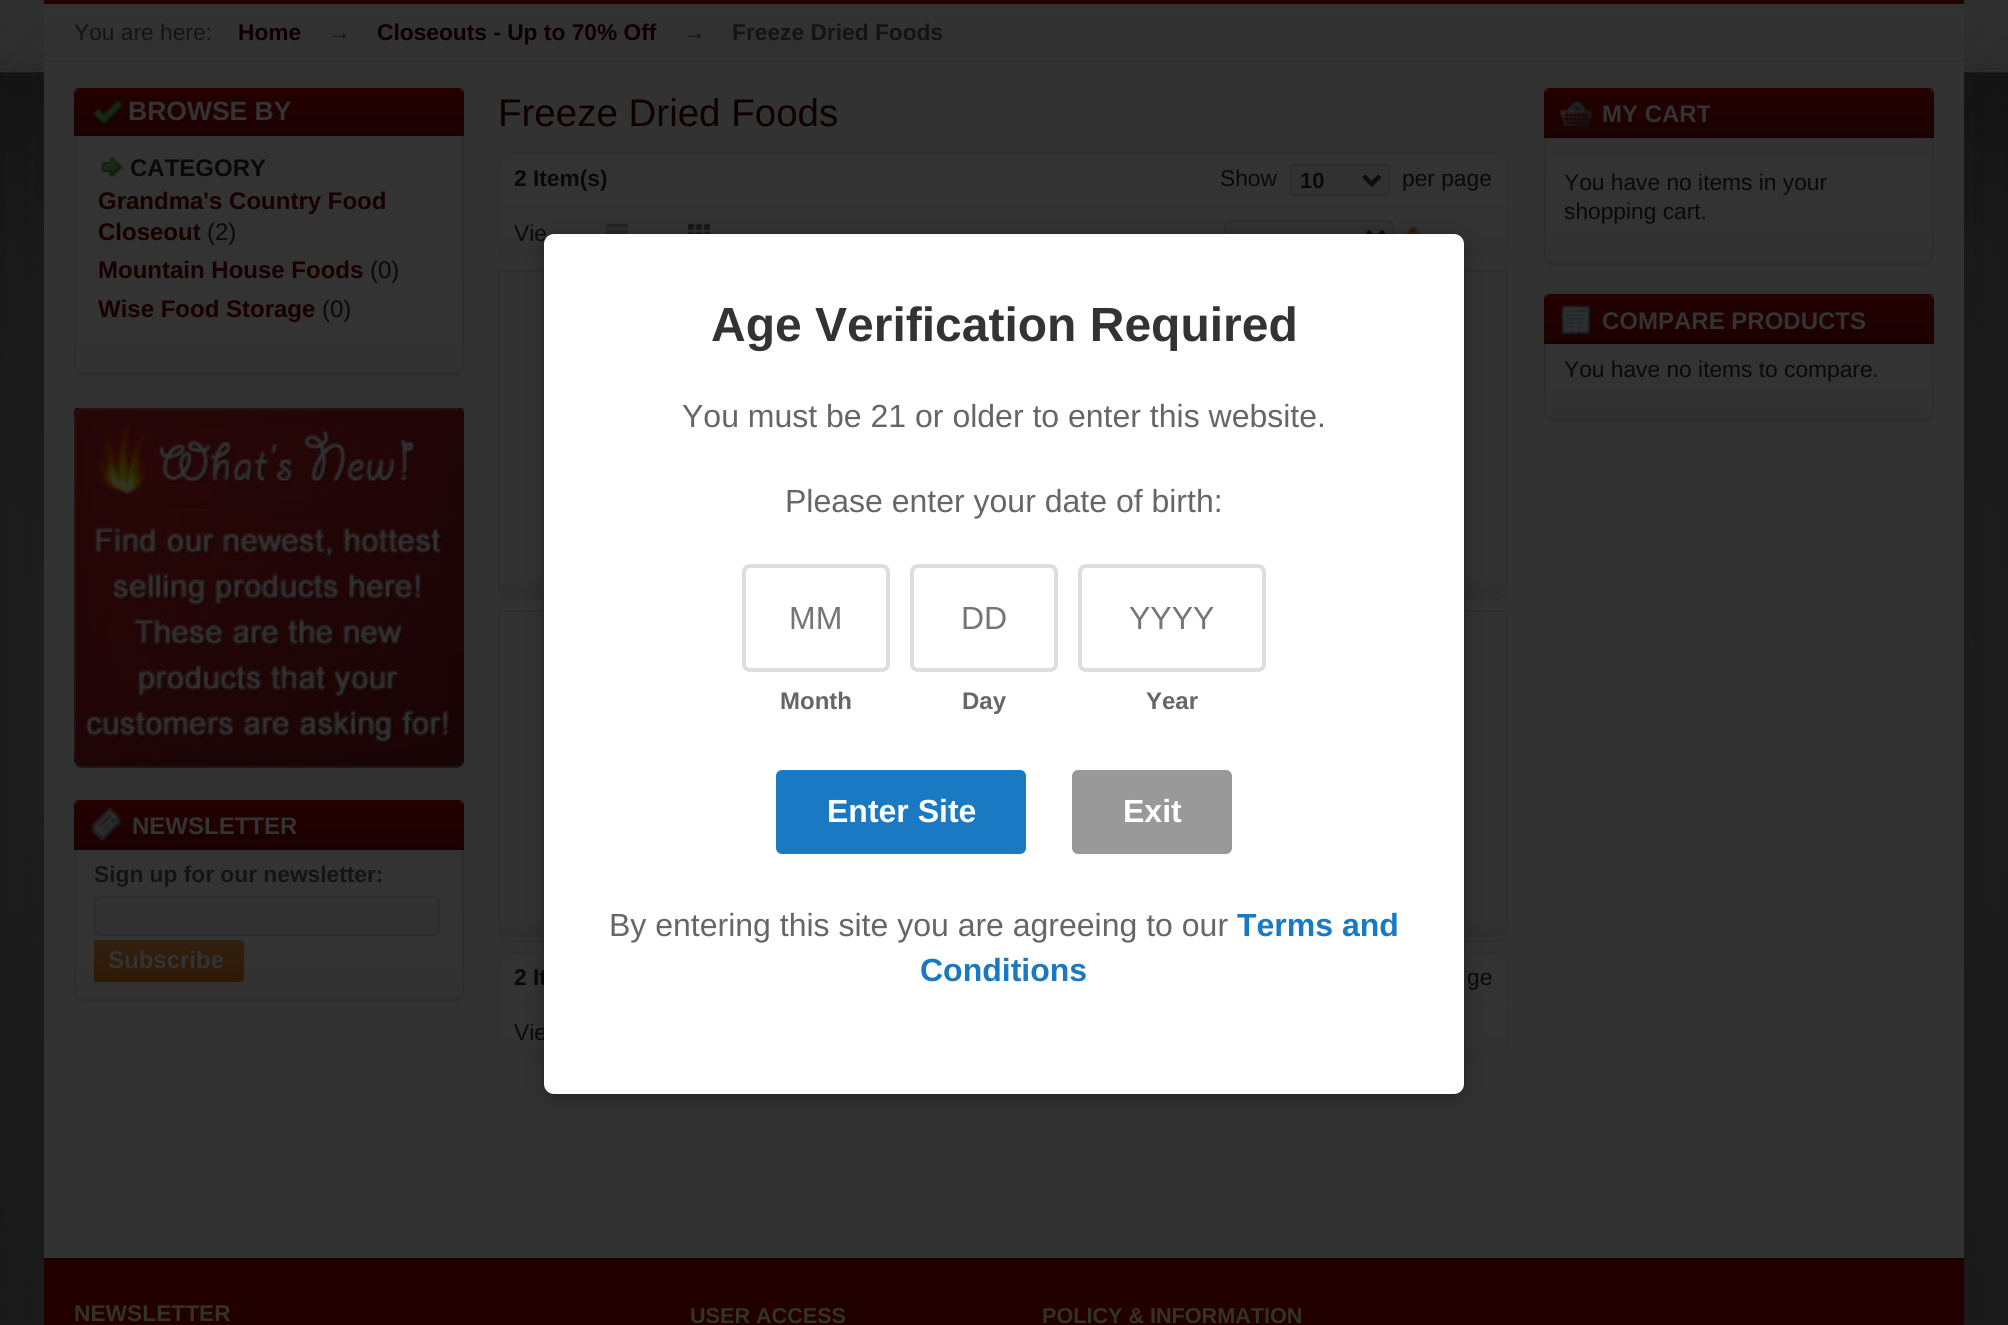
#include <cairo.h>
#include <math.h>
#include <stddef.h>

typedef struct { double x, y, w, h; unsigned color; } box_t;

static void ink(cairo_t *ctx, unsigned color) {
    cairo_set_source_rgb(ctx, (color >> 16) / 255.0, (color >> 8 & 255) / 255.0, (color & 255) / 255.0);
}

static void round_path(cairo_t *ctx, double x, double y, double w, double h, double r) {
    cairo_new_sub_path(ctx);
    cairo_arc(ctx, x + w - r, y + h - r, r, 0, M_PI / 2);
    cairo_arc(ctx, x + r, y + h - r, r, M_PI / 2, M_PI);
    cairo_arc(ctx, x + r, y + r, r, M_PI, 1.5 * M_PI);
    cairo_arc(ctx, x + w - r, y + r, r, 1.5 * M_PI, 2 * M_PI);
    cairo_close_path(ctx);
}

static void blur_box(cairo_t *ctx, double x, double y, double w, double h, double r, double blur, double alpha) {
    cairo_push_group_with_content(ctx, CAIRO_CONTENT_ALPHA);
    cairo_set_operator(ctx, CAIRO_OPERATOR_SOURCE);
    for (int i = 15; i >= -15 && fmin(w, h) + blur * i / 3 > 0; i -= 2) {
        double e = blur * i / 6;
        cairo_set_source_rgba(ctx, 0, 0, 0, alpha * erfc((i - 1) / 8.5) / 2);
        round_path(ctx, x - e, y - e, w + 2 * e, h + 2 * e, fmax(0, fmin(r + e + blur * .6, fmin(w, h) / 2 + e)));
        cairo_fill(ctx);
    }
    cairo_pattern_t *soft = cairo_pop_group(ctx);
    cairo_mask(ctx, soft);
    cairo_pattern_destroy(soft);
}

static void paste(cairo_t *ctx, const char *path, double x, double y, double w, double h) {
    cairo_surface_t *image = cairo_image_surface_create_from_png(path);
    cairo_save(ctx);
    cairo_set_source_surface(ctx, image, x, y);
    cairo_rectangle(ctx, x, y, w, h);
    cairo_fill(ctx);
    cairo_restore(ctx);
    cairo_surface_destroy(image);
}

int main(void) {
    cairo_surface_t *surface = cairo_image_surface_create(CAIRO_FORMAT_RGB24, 2008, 1325);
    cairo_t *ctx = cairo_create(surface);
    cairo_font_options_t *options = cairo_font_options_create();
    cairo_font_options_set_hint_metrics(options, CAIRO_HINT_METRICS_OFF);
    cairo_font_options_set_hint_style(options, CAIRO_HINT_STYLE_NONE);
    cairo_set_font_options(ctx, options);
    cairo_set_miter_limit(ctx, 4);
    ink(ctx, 0xFFFFFF);
    cairo_paint(ctx);
    paste(ctx, "media/1.png", 0, 1319, 2008, 6);
    paste(ctx, "media/2.png", 0, 0, 2008, 1319);
    {
        static const box_t items[] = {
            {44, 0, 1920, 4, 0x200200},
            {44, 4, 1920, 2, 0x333333},
            {44, 58, 1920, 1198, 0x323232},
            {44, 1256, 1920, 2, 0x333333},
        };
        for (size_t i = 0; i < sizeof items / sizeof *items; i++) {
            ink(ctx, items[i].color);
            cairo_rectangle(ctx, items[i].x, items[i].y, items[i].w, items[i].h);
            cairo_fill(ctx);
        }
    }
    paste(ctx, "media/3.png", 44, 8, 1920, 50);
    ink(ctx, 0x2E2E2E);
    cairo_rectangle(ctx, 44, 60, 1920, 2);
    cairo_fill(ctx);
    cairo_select_font_face(ctx, "Liberation Sans", CAIRO_FONT_SLANT_NORMAL, CAIRO_FONT_WEIGHT_NORMAL);
    cairo_set_font_size(ctx, 22.75);
    ink(ctx, 0x141414);
    cairo_move_to(ctx, 74, 40);
    cairo_show_text(ctx, "You are here:");
    cairo_select_font_face(ctx, "Liberation Sans", CAIRO_FONT_SLANT_NORMAL, CAIRO_FONT_WEIGHT_BOLD);
    ink(ctx, 0x0E0000);
    cairo_move_to(ctx, 238, 40);
    cairo_show_text(ctx, "Home");
    cairo_select_font_face(ctx, "Liberation Sans", CAIRO_FONT_SLANT_NORMAL, CAIRO_FONT_WEIGHT_NORMAL);
    ink(ctx, 0x141414);
    cairo_move_to(ctx, 328, 40);
    cairo_show_text(ctx, "→");
    cairo_select_font_face(ctx, "Liberation Sans", CAIRO_FONT_SLANT_NORMAL, CAIRO_FONT_WEIGHT_BOLD);
    ink(ctx, 0x0E0000);
    cairo_move_to(ctx, 377, 40);
    cairo_show_text(ctx, "Closeouts - Up to 70% Off");
    cairo_select_font_face(ctx, "Liberation Sans", CAIRO_FONT_SLANT_NORMAL, CAIRO_FONT_WEIGHT_NORMAL);
    ink(ctx, 0x141414);
    cairo_move_to(ctx, 683, 40);
    cairo_show_text(ctx, "→");
    cairo_select_font_face(ctx, "Liberation Sans", CAIRO_FONT_SLANT_NORMAL, CAIRO_FONT_WEIGHT_BOLD);
    cairo_move_to(ctx, 732, 40);
    cairo_show_text(ctx, "Freeze Dried Foods");
    paste(ctx, "media/4.png", 74, 88, 390, 48);
    paste(ctx, "media/5.png", 92, 99, 32, 26);
    cairo_set_font_size(ctx, 26.5);
    ink(ctx, 0x333333);
    cairo_move_to(ctx, 128, 120);
    cairo_show_text(ctx, "BROWSE BY");
    paste(ctx, "media/6.png", 74, 136, 390, 240);
    paste(ctx, "media/7.png", 101, 157, 22, 20);
    cairo_set_font_size(ctx, 24);
    ink(ctx, 0x090909);
    cairo_move_to(ctx, 130, 176);
    cairo_show_text(ctx, "CATEGORY");
    ink(ctx, 0x180000);
    cairo_move_to(ctx, 98, 209);
    cairo_show_text(ctx, "Grandma's Country Food");
    cairo_move_to(ctx, 98, 240);
    cairo_show_text(ctx, "Closeout");
    cairo_select_font_face(ctx, "Liberation Sans", CAIRO_FONT_SLANT_NORMAL, CAIRO_FONT_WEIGHT_NORMAL);
    ink(ctx, 0x090909);
    cairo_move_to(ctx, 207, 240);
    cairo_show_text(ctx, "(2)");
    cairo_select_font_face(ctx, "Liberation Sans", CAIRO_FONT_SLANT_NORMAL, CAIRO_FONT_WEIGHT_BOLD);
    ink(ctx, 0x180000);
    cairo_move_to(ctx, 98, 278);
    cairo_show_text(ctx, "Mountain House Foods");
    cairo_select_font_face(ctx, "Liberation Sans", CAIRO_FONT_SLANT_NORMAL, CAIRO_FONT_WEIGHT_NORMAL);
    ink(ctx, 0x090909);
    cairo_move_to(ctx, 370, 278);
    cairo_show_text(ctx, "(0)");
    cairo_select_font_face(ctx, "Liberation Sans", CAIRO_FONT_SLANT_NORMAL, CAIRO_FONT_WEIGHT_BOLD);
    ink(ctx, 0x180000);
    cairo_move_to(ctx, 98, 317);
    cairo_show_text(ctx, "Wise Food Storage");
    cairo_select_font_face(ctx, "Liberation Sans", CAIRO_FONT_SLANT_NORMAL, CAIRO_FONT_WEIGHT_NORMAL);
    ink(ctx, 0x090909);
    cairo_move_to(ctx, 322, 317);
    cairo_show_text(ctx, "(0)");
    paste(ctx, "media/8.png", 74, 408, 390, 360);
    paste(ctx, "media/9.png", 74, 800, 390, 50);
    paste(ctx, "media/10.png", 91, 808, 31, 32);
    cairo_select_font_face(ctx, "Liberation Sans", CAIRO_FONT_SLANT_NORMAL, CAIRO_FONT_WEIGHT_BOLD);
    ink(ctx, 0x333333);
    cairo_move_to(ctx, 132, 834);
    cairo_show_text(ctx, "NEWSLETTER");
    paste(ctx, "media/11.png", 74, 850, 390, 152);
    cairo_set_font_size(ctx, 22.75);
    ink(ctx, 0x141414);
    cairo_move_to(ctx, 94, 882);
    cairo_show_text(ctx, "Sign up for our newsletter:");
    paste(ctx, "media/12.png", 94, 899, 346, 35);
    round_path(ctx, 95, 897, 344, 38, 5);
    ink(ctx, 0x2C2C2C);
    cairo_stroke(ctx);
    paste(ctx, "media/13.png", 94, 940, 150, 42);
    cairo_set_font_size(ctx, 24);
    ink(ctx, 0x333333);
    cairo_move_to(ctx, 108, 968);
    cairo_show_text(ctx, "Subscribe");
    cairo_select_font_face(ctx, "Liberation Sans", CAIRO_FONT_SLANT_NORMAL, CAIRO_FONT_WEIGHT_NORMAL);
    cairo_set_font_size(ctx, 38.5);
    ink(ctx, 0x0E0000);
    cairo_move_to(ctx, 498, 126);
    cairo_show_text(ctx, "Freeze Dried Foods");
    paste(ctx, "media/14.png", 498, 152, 1010, 54);
    cairo_select_font_face(ctx, "Liberation Sans", CAIRO_FONT_SLANT_NORMAL, CAIRO_FONT_WEIGHT_BOLD);
    cairo_set_font_size(ctx, 22.75);
    ink(ctx, 0x090909);
    cairo_move_to(ctx, 514, 186);
    cairo_show_text(ctx, "2 Item(s)");
    cairo_select_font_face(ctx, "Liberation Sans", CAIRO_FONT_SLANT_NORMAL, CAIRO_FONT_WEIGHT_NORMAL);
    cairo_move_to(ctx, 1220, 186);
    cairo_show_text(ctx, "Show");
    paste(ctx, "media/15.png", 1290, 164, 100, 30);
    round_path(ctx, 1291, 165, 98, 30, 5);
    ink(ctx, 0x2C2C2C);
    cairo_stroke(ctx);
    cairo_new_path(ctx);
    cairo_move_to(ctx, 1363.5, 176);
    cairo_line_to(ctx, 1371.5, 184);
    cairo_line_to(ctx, 1379.5, 176);
    ink(ctx, 0x0E0E0E);
    cairo_set_line_width(ctx, 4);
    cairo_stroke(ctx);
    cairo_select_font_face(ctx, "Liberation Sans", CAIRO_FONT_SLANT_NORMAL, CAIRO_FONT_WEIGHT_BOLD);
    cairo_set_font_size(ctx, 22);
    ink(ctx, 0x090909);
    cairo_move_to(ctx, 1300, 188);
    cairo_show_text(ctx, "10");
    cairo_select_font_face(ctx, "Liberation Sans", CAIRO_FONT_SLANT_NORMAL, CAIRO_FONT_WEIGHT_NORMAL);
    cairo_set_font_size(ctx, 22.75);
    cairo_move_to(ctx, 1402, 186);
    cairo_show_text(ctx, "per page");
    paste(ctx, "media/16.png", 498, 208, 1010, 52);
    cairo_move_to(ctx, 514, 241);
    cairo_show_text(ctx, "Vie");
    paste(ctx, "media/17.png", 606, 224, 22, 10);
    paste(ctx, "media/18.png", 688, 224, 22, 10);
    paste(ctx, "media/19.png", 1224, 220, 170, 14);
    round_path(ctx, 1225, 221, 168, 30, 5);
    ink(ctx, 0x2C2C2C);
    cairo_set_line_width(ctx, 2);
    cairo_stroke(ctx);
    cairo_new_path(ctx);
    cairo_move_to(ctx, 1367.5, 231);
    cairo_line_to(ctx, 1375.5, 239);
    cairo_line_to(ctx, 1383.5, 231);
    ink(ctx, 0x0E0E0E);
    cairo_set_line_width(ctx, 4);
    cairo_stroke(ctx);
    paste(ctx, "media/20.png", 1406, 226, 14, 8);
    paste(ctx, "media/21.png", 498, 272, 1010, 328);
    ink(ctx, 0x2D2D2D);
    cairo_rectangle(ctx, 498, 270, 1010, 2);
    cairo_fill(ctx);
    paste(ctx, "media/22.png", 498, 612, 1010, 330);
    cairo_rectangle(ctx, 498, 610, 1010, 2);
    cairo_fill(ctx);
    paste(ctx, "media/23.png", 498, 952, 1010, 52);
    cairo_select_font_face(ctx, "Liberation Sans", CAIRO_FONT_SLANT_NORMAL, CAIRO_FONT_WEIGHT_BOLD);
    ink(ctx, 0x090909);
    cairo_move_to(ctx, 514, 985);
    cairo_show_text(ctx, "2 It");
    cairo_select_font_face(ctx, "Liberation Sans", CAIRO_FONT_SLANT_NORMAL, CAIRO_FONT_WEIGHT_NORMAL);
    cairo_move_to(ctx, 1467, 985);
    cairo_show_text(ctx, "ge");
    paste(ctx, "media/24.png", 498, 1006, 1010, 54);
    cairo_move_to(ctx, 514, 1040);
    cairo_show_text(ctx, "Vie");
    paste(ctx, "media/9.png", 1544, 88, 390, 50);
    paste(ctx, "media/25.png", 1560, 101, 32, 26);
    cairo_save(ctx);
    cairo_rectangle(ctx, 1560, 94, 150, 38);
    cairo_clip(ctx);
    cairo_select_font_face(ctx, "Liberation Sans", CAIRO_FONT_SLANT_NORMAL, CAIRO_FONT_WEIGHT_BOLD);
    cairo_set_font_size(ctx, 24);
    ink(ctx, 0x333333);
    cairo_move_to(ctx, 1602, 122);
    cairo_show_text(ctx, "MY CART");
    cairo_restore(ctx);
    ink(ctx, 0x2E2E2E);
    cairo_rectangle(ctx, 1932, 138, 2, 20);
    cairo_fill(ctx);
    cairo_rectangle(ctx, 1544, 138, 2, 20);
    cairo_fill(ctx);
    paste(ctx, "media/26.png", 1544, 158, 390, 108);
    ink(ctx, 0x090909);
    cairo_move_to(ctx, 1564, 190);
    cairo_show_text(ctx, "You have no items in your");
    cairo_move_to(ctx, 1564, 219);
    cairo_show_text(ctx, "shopping cart.");
    paste(ctx, "media/9.png", 1544, 294, 390, 50);
    paste(ctx, "media/27.png", 1561, 305, 30, 30);
    cairo_select_font_face(ctx, "Liberation Sans", CAIRO_FONT_SLANT_NORMAL, CAIRO_FONT_WEIGHT_BOLD);
    cairo_set_font_size(ctx, 24);
    ink(ctx, 0x333333);
    cairo_move_to(ctx, 1602, 329);
    cairo_show_text(ctx, "COMPARE PRODUCTS");
    paste(ctx, "media/28.png", 1544, 344, 390, 78);
    cairo_select_font_face(ctx, "Liberation Sans", CAIRO_FONT_SLANT_NORMAL, CAIRO_FONT_WEIGHT_NORMAL);
    cairo_set_font_size(ctx, 22.75);
    ink(ctx, 0x090909);
    cairo_move_to(ctx, 1564, 377);
    cairo_show_text(ctx, "You have no items to compare.");
    ink(ctx, 0x000000);
    blur_box(ctx, 544, 238, 920, 860, 10, 10, 0.3);
    ink(ctx, 0xFFFFFF);
    round_path(ctx, 544, 234, 920, 860, 10);
    cairo_fill(ctx);
    cairo_select_font_face(ctx, "Liberation Sans", CAIRO_FONT_SLANT_NORMAL, CAIRO_FONT_WEIGHT_BOLD);
    cairo_set_font_size(ctx, 48);
    ink(ctx, 0x333333);
    cairo_move_to(ctx, 711, 341);
    cairo_show_text(ctx, "Age Verification Required");
    cairo_select_font_face(ctx, "Liberation Sans", CAIRO_FONT_SLANT_NORMAL, CAIRO_FONT_WEIGHT_NORMAL);
    cairo_set_font_size(ctx, 32);
    ink(ctx, 0x666666);
    cairo_move_to(ctx, 682, 427);
    cairo_show_text(ctx, "You must be 21 or older to enter this website.");
    cairo_move_to(ctx, 785, 512);
    cairo_show_text(ctx, "Please enter your date of birth:");
    round_path(ctx, 744, 566, 144, 104, 6);
    ink(ctx, 0xDDDDDD);
    cairo_stroke(ctx);
    ink(ctx, 0x757575);
    cairo_move_to(ctx, 789, 629);
    cairo_show_text(ctx, "MM");
    cairo_select_font_face(ctx, "Liberation Sans", CAIRO_FONT_SLANT_NORMAL, CAIRO_FONT_WEIGHT_BOLD);
    cairo_set_font_size(ctx, 24);
    ink(ctx, 0x666666);
    cairo_move_to(ctx, 780, 709);
    cairo_show_text(ctx, "Month");
    round_path(ctx, 912, 566, 144, 104, 6);
    ink(ctx, 0xDDDDDD);
    cairo_stroke(ctx);
    cairo_select_font_face(ctx, "Liberation Sans", CAIRO_FONT_SLANT_NORMAL, CAIRO_FONT_WEIGHT_NORMAL);
    cairo_set_font_size(ctx, 32);
    ink(ctx, 0x757575);
    cairo_move_to(ctx, 961, 629);
    cairo_show_text(ctx, "DD");
    cairo_select_font_face(ctx, "Liberation Sans", CAIRO_FONT_SLANT_NORMAL, CAIRO_FONT_WEIGHT_BOLD);
    cairo_set_font_size(ctx, 24);
    ink(ctx, 0x666666);
    cairo_move_to(ctx, 962, 709);
    cairo_show_text(ctx, "Day");
    round_path(ctx, 1080, 566, 184, 104, 6);
    ink(ctx, 0xDDDDDD);
    cairo_stroke(ctx);
    cairo_select_font_face(ctx, "Liberation Sans", CAIRO_FONT_SLANT_NORMAL, CAIRO_FONT_WEIGHT_NORMAL);
    cairo_set_font_size(ctx, 32);
    ink(ctx, 0x757575);
    cairo_move_to(ctx, 1129, 629);
    cairo_show_text(ctx, "YYYY");
    cairo_select_font_face(ctx, "Liberation Sans", CAIRO_FONT_SLANT_NORMAL, CAIRO_FONT_WEIGHT_BOLD);
    cairo_set_font_size(ctx, 24);
    ink(ctx, 0x666666);
    cairo_move_to(ctx, 1146, 709);
    cairo_show_text(ctx, "Year");
    ink(ctx, 0x1979C3);
    round_path(ctx, 776, 770, 250, 84, 6);
    cairo_fill(ctx);
    cairo_set_font_size(ctx, 32);
    ink(ctx, 0xFFFFFF);
    cairo_move_to(ctx, 827, 822);
    cairo_show_text(ctx, "Enter Site");
    ink(ctx, 0x999999);
    round_path(ctx, 1072, 770, 160, 84, 6);
    cairo_fill(ctx);
    ink(ctx, 0xFFFFFF);
    cairo_move_to(ctx, 1123, 822);
    cairo_show_text(ctx, "Exit");
    cairo_select_font_face(ctx, "Liberation Sans", CAIRO_FONT_SLANT_NORMAL, CAIRO_FONT_WEIGHT_NORMAL);
    ink(ctx, 0x666666);
    cairo_move_to(ctx, 609, 936);
    cairo_show_text(ctx, "By entering this site you are agreeing to our");
    cairo_select_font_face(ctx, "Liberation Sans", CAIRO_FONT_SLANT_NORMAL, CAIRO_FONT_WEIGHT_BOLD);
    ink(ctx, 0x1979C3);
    cairo_move_to(ctx, 1237, 936);
    cairo_show_text(ctx, "Terms and");
    cairo_move_to(ctx, 920, 981);
    cairo_show_text(ctx, "Conditions");
    ink(ctx, 0x220000);
    cairo_rectangle(ctx, 44, 1260, 1920, 65);
    cairo_fill(ctx);
    ink(ctx, 0x170000);
    cairo_rectangle(ctx, 44, 1258, 1920, 2);
    cairo_fill(ctx);
    cairo_set_font_size(ctx, 22.75);
    ink(ctx, 0x333325);
    cairo_move_to(ctx, 74, 1321);
    cairo_show_text(ctx, "NEWSLETTER");
    cairo_set_font_size(ctx, 21.6);
    cairo_move_to(ctx, 690, 1323);
    cairo_show_text(ctx, "USER ACCESS");
    cairo_move_to(ctx, 1042, 1323);
    cairo_show_text(ctx, "POLICY & INFORMATION");
    cairo_surface_write_to_png(surface, "image.png");
    cairo_font_options_destroy(options);
    cairo_destroy(ctx);
    cairo_surface_destroy(surface);
    return 0;
}
